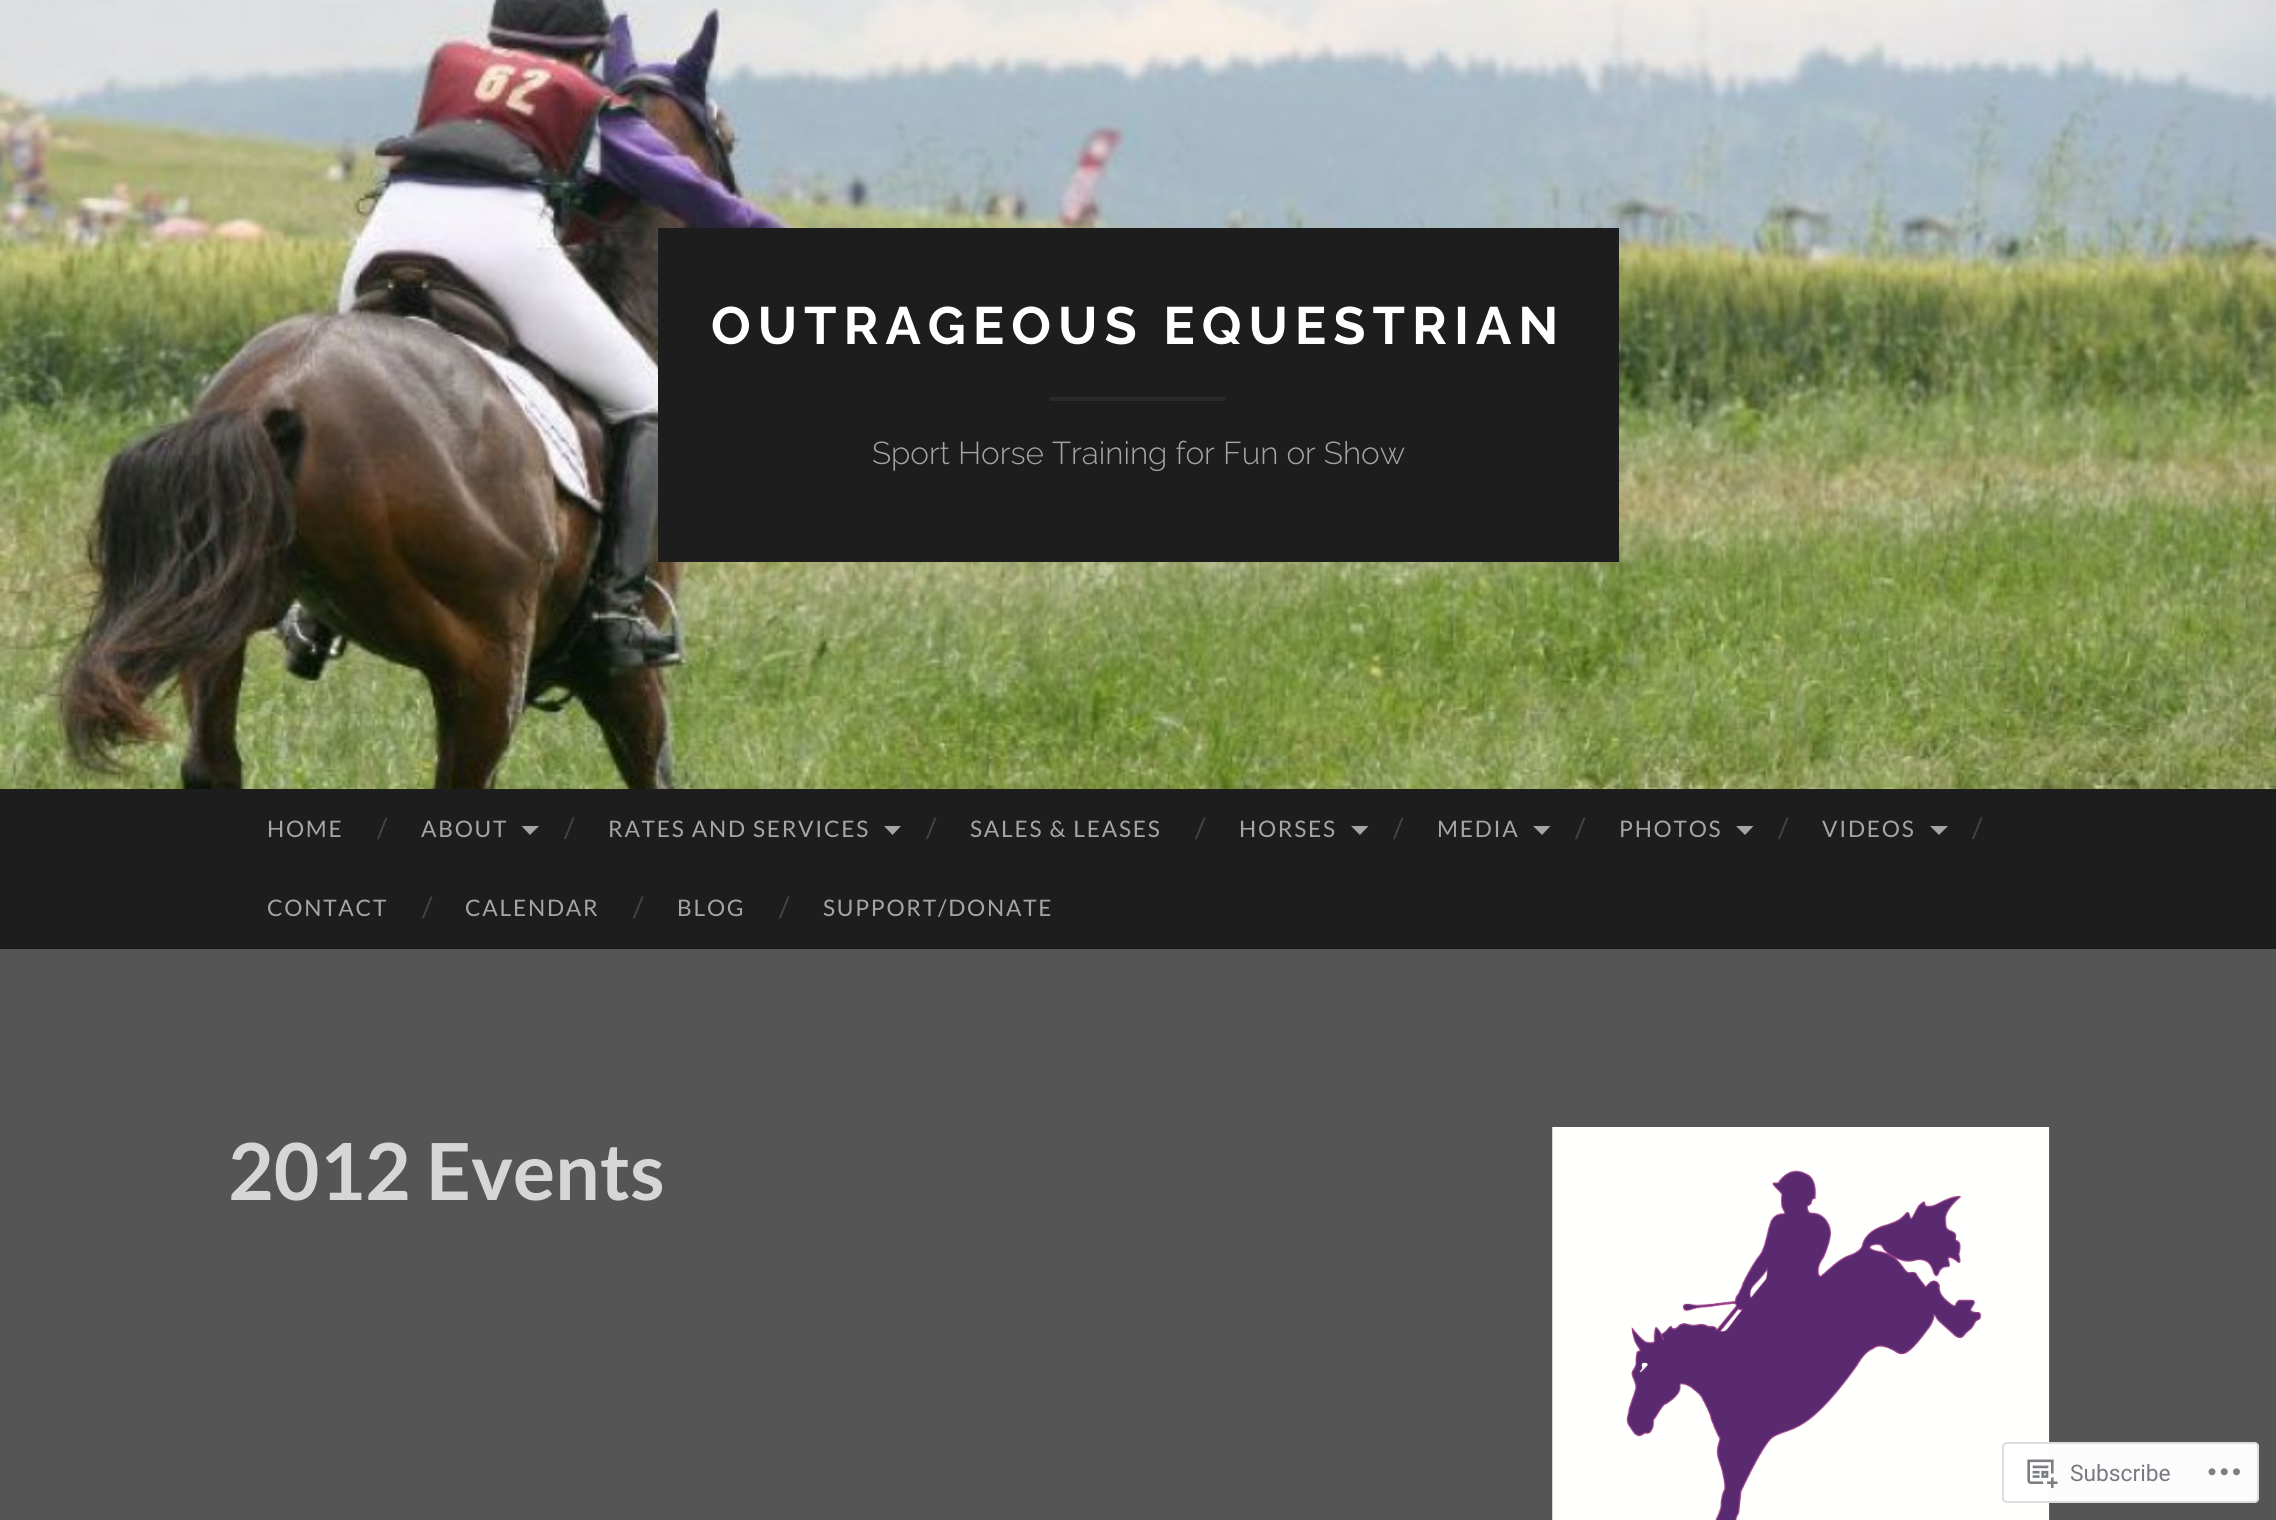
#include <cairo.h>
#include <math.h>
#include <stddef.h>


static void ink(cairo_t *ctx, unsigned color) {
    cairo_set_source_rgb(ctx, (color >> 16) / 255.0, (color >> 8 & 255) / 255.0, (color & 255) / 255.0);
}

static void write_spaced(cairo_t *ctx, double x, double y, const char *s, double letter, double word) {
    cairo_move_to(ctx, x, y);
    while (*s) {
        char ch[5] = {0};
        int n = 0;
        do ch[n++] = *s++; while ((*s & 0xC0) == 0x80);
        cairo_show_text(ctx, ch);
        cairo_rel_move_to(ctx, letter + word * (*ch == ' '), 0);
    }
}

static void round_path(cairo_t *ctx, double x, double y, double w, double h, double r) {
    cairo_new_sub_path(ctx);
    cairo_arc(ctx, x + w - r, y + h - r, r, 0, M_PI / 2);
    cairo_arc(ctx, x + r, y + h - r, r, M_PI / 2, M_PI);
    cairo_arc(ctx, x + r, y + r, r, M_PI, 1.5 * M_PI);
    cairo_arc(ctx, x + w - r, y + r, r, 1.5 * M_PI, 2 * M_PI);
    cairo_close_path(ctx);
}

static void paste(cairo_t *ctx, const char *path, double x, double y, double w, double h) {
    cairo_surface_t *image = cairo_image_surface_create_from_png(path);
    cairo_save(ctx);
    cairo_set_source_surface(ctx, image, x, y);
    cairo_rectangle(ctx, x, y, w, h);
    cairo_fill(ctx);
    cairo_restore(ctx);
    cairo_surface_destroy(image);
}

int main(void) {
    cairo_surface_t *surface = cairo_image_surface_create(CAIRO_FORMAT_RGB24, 2276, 1520);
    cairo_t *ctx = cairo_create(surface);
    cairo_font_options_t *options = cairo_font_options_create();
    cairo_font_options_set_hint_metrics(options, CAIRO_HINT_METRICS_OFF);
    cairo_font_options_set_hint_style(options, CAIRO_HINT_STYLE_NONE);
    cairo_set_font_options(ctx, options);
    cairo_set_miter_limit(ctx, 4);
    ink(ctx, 0x555555);
    cairo_paint(ctx);
    paste(ctx, "media/1.png", 0, 0, 2276, 789);
    ink(ctx, 0x1D1D1D);
    cairo_rectangle(ctx, 658, 228, 961, 334);
    cairo_fill(ctx);
    cairo_select_font_face(ctx, "Raleway", CAIRO_FONT_SLANT_NORMAL, CAIRO_FONT_WEIGHT_BOLD);
    cairo_set_font_size(ctx, 52.5);
    ink(ctx, 0xFFFFFF);
    write_spaced(ctx, 711, 344, "OUTRAGEOUS EQUESTRIAN", 7, 0);
    ink(ctx, 0x2B2B2B);
    cairo_rectangle(ctx, 1050, 397, 175, 4);
    cairo_fill(ctx);
    cairo_select_font_face(ctx, "Raleway Light", CAIRO_FONT_SLANT_NORMAL, CAIRO_FONT_WEIGHT_NORMAL);
    cairo_set_font_size(ctx, 31.5);
    ink(ctx, 0xA5A5A5);
    cairo_move_to(ctx, 872, 464);
    cairo_show_text(ctx, "Sport Horse Training for Fun or Show");
    ink(ctx, 0x1D1D1D);
    cairo_rectangle(ctx, 0, 789, 2276, 160);
    cairo_fill(ctx);
    cairo_select_font_face(ctx, "Lato", CAIRO_FONT_SLANT_NORMAL, CAIRO_FONT_WEIGHT_NORMAL);
    cairo_set_font_size(ctx, 22.75);
    ink(ctx, 0xA5A5A5);
    write_spaced(ctx, 267, 837, "HOME", 1.75, 0);
    cairo_set_font_size(ctx, 28);
    ink(ctx, 0x444444);
    cairo_move_to(ctx, 377, 838);
    cairo_show_text(ctx, "/");
    cairo_set_font_size(ctx, 22.75);
    ink(ctx, 0xA5A5A5);
    write_spaced(ctx, 421, 837, "ABOUT", 1.75, 0);
    cairo_new_path(ctx);
    cairo_move_to(ctx, 521.5, 826);
    cairo_line_to(ctx, 539, 826);
    cairo_line_to(ctx, 530, 835);
    cairo_close_path(ctx);
    cairo_fill(ctx);
    cairo_set_font_size(ctx, 28);
    ink(ctx, 0x444444);
    cairo_move_to(ctx, 564, 838);
    cairo_show_text(ctx, "/");
    cairo_set_font_size(ctx, 22.75);
    ink(ctx, 0xA5A5A5);
    write_spaced(ctx, 608, 837, "RATES AND SERVICES", 1.75, 0);
    cairo_new_path(ctx);
    cairo_move_to(ctx, 884, 826);
    cairo_line_to(ctx, 901, 826);
    cairo_line_to(ctx, 892.5, 835);
    cairo_close_path(ctx);
    cairo_fill(ctx);
    cairo_set_font_size(ctx, 28);
    ink(ctx, 0x444444);
    cairo_move_to(ctx, 926, 838);
    cairo_show_text(ctx, "/");
    cairo_set_font_size(ctx, 22.75);
    ink(ctx, 0xA5A5A5);
    write_spaced(ctx, 970, 837, "SALES & LEASES", 1.75, 0);
    cairo_set_font_size(ctx, 28);
    ink(ctx, 0x444444);
    cairo_move_to(ctx, 1195, 838);
    cairo_show_text(ctx, "/");
    cairo_set_font_size(ctx, 22.75);
    ink(ctx, 0xA5A5A5);
    write_spaced(ctx, 1239, 837, "HORSES", 1.75, 0);
    cairo_new_path(ctx);
    cairo_move_to(ctx, 1351, 826);
    cairo_line_to(ctx, 1368.5, 826);
    cairo_line_to(ctx, 1360, 835);
    cairo_close_path(ctx);
    cairo_fill(ctx);
    cairo_set_font_size(ctx, 28);
    ink(ctx, 0x444444);
    cairo_move_to(ctx, 1393, 838);
    cairo_show_text(ctx, "/");
    cairo_set_font_size(ctx, 22.75);
    ink(ctx, 0xA5A5A5);
    write_spaced(ctx, 1437, 837, "MEDIA", 1.75, 0);
    cairo_new_path(ctx);
    cairo_move_to(ctx, 1533, 826);
    cairo_line_to(ctx, 1550.5, 826);
    cairo_line_to(ctx, 1542, 835);
    cairo_close_path(ctx);
    cairo_fill(ctx);
    cairo_set_font_size(ctx, 28);
    ink(ctx, 0x444444);
    cairo_move_to(ctx, 1575, 838);
    cairo_show_text(ctx, "/");
    cairo_set_font_size(ctx, 22.75);
    ink(ctx, 0xA5A5A5);
    write_spaced(ctx, 1619, 837, "PHOTOS", 1.75, 0);
    cairo_new_path(ctx);
    cairo_move_to(ctx, 1736, 826);
    cairo_line_to(ctx, 1753.5, 826);
    cairo_line_to(ctx, 1745, 835);
    cairo_close_path(ctx);
    cairo_fill(ctx);
    cairo_set_font_size(ctx, 28);
    ink(ctx, 0x444444);
    cairo_move_to(ctx, 1778, 838);
    cairo_show_text(ctx, "/");
    cairo_set_font_size(ctx, 22.75);
    ink(ctx, 0xA5A5A5);
    write_spaced(ctx, 1822, 837, "VIDEOS", 1.75, 0);
    cairo_new_path(ctx);
    cairo_move_to(ctx, 1930, 826);
    cairo_line_to(ctx, 1948, 826);
    cairo_line_to(ctx, 1939, 835);
    cairo_close_path(ctx);
    cairo_fill(ctx);
    cairo_set_font_size(ctx, 28);
    ink(ctx, 0x444444);
    cairo_move_to(ctx, 1972, 838);
    cairo_show_text(ctx, "/");
    cairo_set_font_size(ctx, 22.75);
    ink(ctx, 0xA5A5A5);
    write_spaced(ctx, 267, 916, "CONTACT", 1.75, 0);
    cairo_set_font_size(ctx, 28);
    ink(ctx, 0x444444);
    cairo_move_to(ctx, 422, 917);
    cairo_show_text(ctx, "/");
    cairo_set_font_size(ctx, 22.75);
    ink(ctx, 0xA5A5A5);
    write_spaced(ctx, 465, 916, "CALENDAR", 1.75, 0);
    cairo_set_font_size(ctx, 28);
    ink(ctx, 0x444444);
    cairo_move_to(ctx, 633, 917);
    cairo_show_text(ctx, "/");
    cairo_set_font_size(ctx, 22.75);
    ink(ctx, 0xA5A5A5);
    write_spaced(ctx, 677, 916, "BLOG", 1.75, 0);
    cairo_set_font_size(ctx, 28);
    ink(ctx, 0x444444);
    cairo_move_to(ctx, 779, 917);
    cairo_show_text(ctx, "/");
    cairo_set_font_size(ctx, 22.75);
    ink(ctx, 0xA5A5A5);
    write_spaced(ctx, 823, 916, "SUPPORT/DONATE", 1.75, 0);
    cairo_select_font_face(ctx, "Lato", CAIRO_FONT_SLANT_NORMAL, CAIRO_FONT_WEIGHT_BOLD);
    cairo_set_font_size(ctx, 78.75);
    ink(ctx, 0xD6D6D6);
    cairo_move_to(ctx, 228, 1200);
    cairo_show_text(ctx, "2012 Events");
    paste(ctx, "media/2.png", 1552, 1127, 498, 393);
    cairo_set_source_rgba(ctx, 1, 1, 1, 0.98);
    round_path(ctx, 2002, 1442, 257, 61, 5);
    cairo_fill(ctx);
    round_path(ctx, 2003, 1443, 255, 59, 4);
    cairo_set_source_rgba(ctx, 0.863, 0.863, 0.871, 0.98);
    cairo_stroke(ctx);
    paste(ctx, "media/3.png", 2027, 1459, 31, 29);
    cairo_select_font_face(ctx, "Roboto", CAIRO_FONT_SLANT_NORMAL, CAIRO_FONT_WEIGHT_NORMAL);
    cairo_set_font_size(ctx, 22.75);
    ink(ctx, 0x777B81);
    cairo_move_to(ctx, 2070, 1481);
    cairo_show_text(ctx, "Subscribe");
    paste(ctx, "media/4.png", 2208, 1468, 32, 8);
    cairo_surface_write_to_png(surface, "image.png");
    cairo_font_options_destroy(options);
    cairo_destroy(ctx);
    cairo_surface_destroy(surface);
    return 0;
}
